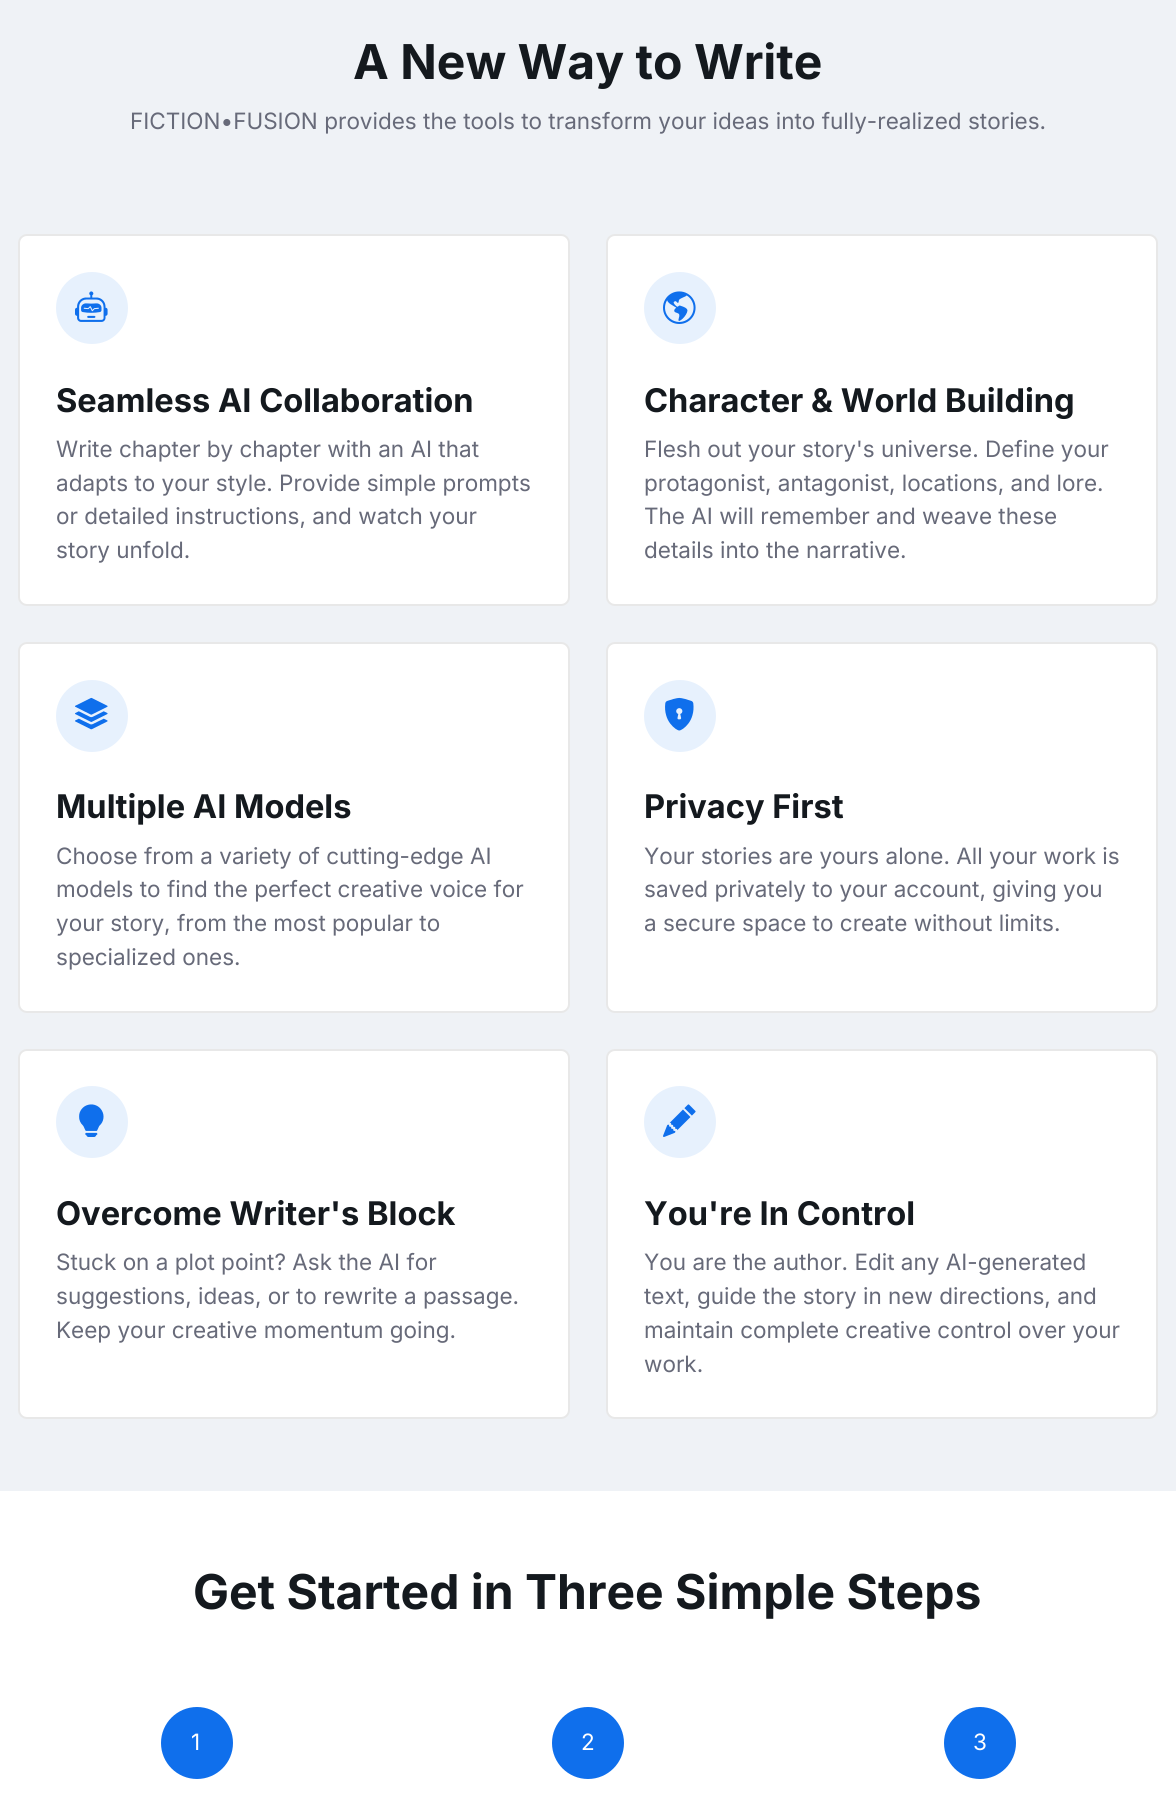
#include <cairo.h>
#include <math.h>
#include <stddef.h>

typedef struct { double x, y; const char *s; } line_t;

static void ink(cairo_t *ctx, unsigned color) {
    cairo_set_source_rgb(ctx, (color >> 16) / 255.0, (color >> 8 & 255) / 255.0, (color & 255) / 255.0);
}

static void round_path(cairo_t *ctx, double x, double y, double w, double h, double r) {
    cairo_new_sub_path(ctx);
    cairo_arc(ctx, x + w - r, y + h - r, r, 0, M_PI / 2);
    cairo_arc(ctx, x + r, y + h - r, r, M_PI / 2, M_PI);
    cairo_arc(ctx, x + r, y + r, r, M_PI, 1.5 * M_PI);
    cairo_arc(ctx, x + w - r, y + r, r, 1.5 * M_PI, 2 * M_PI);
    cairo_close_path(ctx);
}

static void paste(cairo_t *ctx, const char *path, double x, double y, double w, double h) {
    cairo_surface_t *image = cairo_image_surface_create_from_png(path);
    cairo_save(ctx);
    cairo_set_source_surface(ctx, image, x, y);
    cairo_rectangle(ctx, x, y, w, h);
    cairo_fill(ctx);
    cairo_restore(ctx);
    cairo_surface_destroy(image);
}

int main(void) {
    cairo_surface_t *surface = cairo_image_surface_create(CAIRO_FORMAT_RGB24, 1176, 1819);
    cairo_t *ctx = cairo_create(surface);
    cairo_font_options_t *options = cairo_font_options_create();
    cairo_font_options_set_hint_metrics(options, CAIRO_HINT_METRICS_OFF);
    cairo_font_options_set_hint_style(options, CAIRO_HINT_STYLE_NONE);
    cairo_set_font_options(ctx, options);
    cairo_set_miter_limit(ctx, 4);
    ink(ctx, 0xEFF2F6);
    cairo_paint(ctx);
    cairo_select_font_face(ctx, "Inter", CAIRO_FONT_SLANT_NORMAL, CAIRO_FONT_WEIGHT_BOLD);
    cairo_set_font_size(ctx, 48);
    ink(ctx, 0x14191E);
    cairo_move_to(ctx, 353, 79);
    cairo_show_text(ctx, "A New Way to Write");
    cairo_select_font_face(ctx, "Inter", CAIRO_FONT_SLANT_NORMAL, CAIRO_FONT_WEIGHT_NORMAL);
    cairo_set_font_size(ctx, 22.5);
    ink(ctx, 0x676A79);
    cairo_move_to(ctx, 130, 129);
    cairo_show_text(ctx, "FICTION•FUSION provides the tools to transform your ideas into fully-realized stories.");
    ink(ctx, 0xFFFFFF);
    round_path(ctx, 18, 234, 552, 372, 9);
    cairo_fill(ctx);
    round_path(ctx, 19, 235, 550, 370, 8);
    cairo_set_source_rgba(ctx, 0, 0, 0, 0.09);
    cairo_stroke(ctx);
    ink(ctx, 0xE7F1FD);
    cairo_arc(ctx, 92, 308, 36, 0, 2 * M_PI);
    cairo_fill(ctx);
    paste(ctx, "media/1.png", 75, 291, 33, 31);
    cairo_select_font_face(ctx, "Inter", CAIRO_FONT_SLANT_NORMAL, CAIRO_FONT_WEIGHT_BOLD);
    cairo_set_font_size(ctx, 32.6);
    ink(ctx, 0x14191E);
    cairo_move_to(ctx, 56, 412);
    cairo_show_text(ctx, "Seamless AI Collaboration");
    cairo_select_font_face(ctx, "Inter", CAIRO_FONT_SLANT_NORMAL, CAIRO_FONT_WEIGHT_NORMAL);
    cairo_set_font_size(ctx, 22.5);
    ink(ctx, 0x676A79);
    {
        static const line_t items[] = {
            {56, 457, "Write chapter by chapter with an AI that"},
            {56, 491, "adapts to your style. Provide simple prompts"},
            {56, 524, "or detailed instructions, and watch your"},
            {56, 558, "story unfold."},
        };
        for (size_t i = 0; i < sizeof items / sizeof *items; i++) {
            cairo_move_to(ctx, items[i].x, items[i].y);
            cairo_show_text(ctx, items[i].s);
        }
    }
    ink(ctx, 0xFFFFFF);
    round_path(ctx, 606, 234, 552, 372, 9);
    cairo_fill(ctx);
    round_path(ctx, 607, 235, 550, 370, 8);
    cairo_set_source_rgba(ctx, 0, 0, 0, 0.09);
    cairo_stroke(ctx);
    ink(ctx, 0xE7F1FD);
    cairo_arc(ctx, 680, 308, 36, 0, 2 * M_PI);
    cairo_fill(ctx);
    paste(ctx, "media/2.png", 663, 291, 33, 33);
    cairo_select_font_face(ctx, "Inter", CAIRO_FONT_SLANT_NORMAL, CAIRO_FONT_WEIGHT_BOLD);
    cairo_set_font_size(ctx, 32.6);
    ink(ctx, 0x14191E);
    cairo_move_to(ctx, 644, 412);
    cairo_show_text(ctx, "Character & World Building");
    cairo_select_font_face(ctx, "Inter", CAIRO_FONT_SLANT_NORMAL, CAIRO_FONT_WEIGHT_NORMAL);
    cairo_set_font_size(ctx, 22.5);
    ink(ctx, 0x676A79);
    {
        static const line_t items[] = {
            {644, 457, "Flesh out your story's universe. Define your"},
            {644, 491, "protagonist, antagonist, locations, and lore."},
            {644, 524, "The AI will remember and weave these"},
            {644, 558, "details into the narrative."},
        };
        for (size_t i = 0; i < sizeof items / sizeof *items; i++) {
            cairo_move_to(ctx, items[i].x, items[i].y);
            cairo_show_text(ctx, items[i].s);
        }
    }
    ink(ctx, 0xFFFFFF);
    round_path(ctx, 18, 642, 552, 371, 9);
    cairo_fill(ctx);
    round_path(ctx, 19, 643, 550, 369, 8);
    cairo_set_source_rgba(ctx, 0, 0, 0, 0.09);
    cairo_stroke(ctx);
    ink(ctx, 0xE7F1FD);
    cairo_arc(ctx, 92, 716, 36, 0, 2 * M_PI);
    cairo_fill(ctx);
    paste(ctx, "media/3.png", 75, 697, 33, 33);
    cairo_select_font_face(ctx, "Inter", CAIRO_FONT_SLANT_NORMAL, CAIRO_FONT_WEIGHT_BOLD);
    cairo_set_font_size(ctx, 32.6);
    ink(ctx, 0x14191E);
    cairo_move_to(ctx, 56, 818);
    cairo_show_text(ctx, "Multiple AI Models");
    cairo_select_font_face(ctx, "Inter", CAIRO_FONT_SLANT_NORMAL, CAIRO_FONT_WEIGHT_NORMAL);
    cairo_set_font_size(ctx, 22.5);
    ink(ctx, 0x676A79);
    {
        static const line_t items[] = {
            {56, 864, "Choose from a variety of cutting-edge AI"},
            {56, 897, "models to find the perfect creative voice for"},
            {56, 931, "your story, from the most popular to"},
            {56, 965, "specialized ones."},
        };
        for (size_t i = 0; i < sizeof items / sizeof *items; i++) {
            cairo_move_to(ctx, items[i].x, items[i].y);
            cairo_show_text(ctx, items[i].s);
        }
    }
    ink(ctx, 0xFFFFFF);
    round_path(ctx, 606, 642, 552, 371, 9);
    cairo_fill(ctx);
    round_path(ctx, 607, 643, 550, 369, 8);
    cairo_set_source_rgba(ctx, 0, 0, 0, 0.09);
    cairo_stroke(ctx);
    ink(ctx, 0xE7F1FD);
    cairo_arc(ctx, 680, 716, 36, 0, 2 * M_PI);
    cairo_fill(ctx);
    paste(ctx, "media/4.png", 665, 697, 29, 34);
    cairo_select_font_face(ctx, "Inter", CAIRO_FONT_SLANT_NORMAL, CAIRO_FONT_WEIGHT_BOLD);
    cairo_set_font_size(ctx, 32.6);
    ink(ctx, 0x14191E);
    cairo_move_to(ctx, 644, 818);
    cairo_show_text(ctx, "Privacy First");
    cairo_select_font_face(ctx, "Inter", CAIRO_FONT_SLANT_NORMAL, CAIRO_FONT_WEIGHT_NORMAL);
    cairo_set_font_size(ctx, 22.5);
    ink(ctx, 0x676A79);
    {
        static const line_t items[] = {
            {644, 864, "Your stories are yours alone. All your work is"},
            {644, 897, "saved privately to your account, giving you"},
            {644, 931, "a secure space to create without limits."},
        };
        for (size_t i = 0; i < sizeof items / sizeof *items; i++) {
            cairo_move_to(ctx, items[i].x, items[i].y);
            cairo_show_text(ctx, items[i].s);
        }
    }
    ink(ctx, 0xFFFFFF);
    round_path(ctx, 18, 1049, 552, 370, 9);
    cairo_fill(ctx);
    round_path(ctx, 19, 1050, 550, 368, 8);
    cairo_set_source_rgba(ctx, 0, 0, 0, 0.09);
    cairo_stroke(ctx);
    ink(ctx, 0xE7F1FD);
    cairo_arc(ctx, 92, 1122, 36, 0, 2 * M_PI);
    cairo_fill(ctx);
    paste(ctx, "media/5.png", 79, 1104, 25, 33);
    cairo_select_font_face(ctx, "Inter", CAIRO_FONT_SLANT_NORMAL, CAIRO_FONT_WEIGHT_BOLD);
    cairo_set_font_size(ctx, 32.6);
    ink(ctx, 0x14191E);
    cairo_move_to(ctx, 56, 1225);
    cairo_show_text(ctx, "Overcome Writer's Block");
    cairo_select_font_face(ctx, "Inter", CAIRO_FONT_SLANT_NORMAL, CAIRO_FONT_WEIGHT_NORMAL);
    cairo_set_font_size(ctx, 22.5);
    ink(ctx, 0x676A79);
    {
        static const line_t items[] = {
            {56, 1270, "Stuck on a plot point? Ask the AI for"},
            {56, 1304, "suggestions, ideas, or to rewrite a passage."},
            {56, 1338, "Keep your creative momentum going."},
        };
        for (size_t i = 0; i < sizeof items / sizeof *items; i++) {
            cairo_move_to(ctx, items[i].x, items[i].y);
            cairo_show_text(ctx, items[i].s);
        }
    }
    ink(ctx, 0xFFFFFF);
    round_path(ctx, 606, 1049, 552, 370, 9);
    cairo_fill(ctx);
    round_path(ctx, 607, 1050, 550, 368, 8);
    cairo_set_source_rgba(ctx, 0, 0, 0, 0.09);
    cairo_stroke(ctx);
    ink(ctx, 0xE7F1FD);
    cairo_arc(ctx, 680, 1122, 36, 0, 2 * M_PI);
    cairo_fill(ctx);
    paste(ctx, "media/6.png", 663, 1104, 33, 33);
    cairo_select_font_face(ctx, "Inter", CAIRO_FONT_SLANT_NORMAL, CAIRO_FONT_WEIGHT_BOLD);
    cairo_set_font_size(ctx, 32.6);
    ink(ctx, 0x14191E);
    cairo_move_to(ctx, 644, 1225);
    cairo_show_text(ctx, "You're In Control");
    cairo_select_font_face(ctx, "Inter", CAIRO_FONT_SLANT_NORMAL, CAIRO_FONT_WEIGHT_NORMAL);
    cairo_set_font_size(ctx, 22.5);
    ink(ctx, 0x676A79);
    {
        static const line_t items[] = {
            {644, 1270, "You are the author. Edit any AI-generated"},
            {644, 1304, "text, guide the story in new directions, and"},
            {644, 1338, "maintain complete creative control over your"},
            {644, 1372, "work."},
        };
        for (size_t i = 0; i < sizeof items / sizeof *items; i++) {
            cairo_move_to(ctx, items[i].x, items[i].y);
            cairo_show_text(ctx, items[i].s);
        }
    }
    ink(ctx, 0xFFFFFF);
    cairo_rectangle(ctx, 0, 1491, 1176, 328);
    cairo_fill(ctx);
    cairo_select_font_face(ctx, "Inter", CAIRO_FONT_SLANT_NORMAL, CAIRO_FONT_WEIGHT_BOLD);
    cairo_set_font_size(ctx, 48);
    ink(ctx, 0x14191E);
    cairo_move_to(ctx, 193, 1609);
    cairo_show_text(ctx, "Get Started in Three Simple Steps");
    ink(ctx, 0x0F6FEC);
    cairo_new_path(ctx);
    cairo_arc(ctx, 197, 1743, 36, 0, 2 * M_PI);
    cairo_fill(ctx);
    cairo_select_font_face(ctx, "Inter", CAIRO_FONT_SLANT_NORMAL, CAIRO_FONT_WEIGHT_NORMAL);
    cairo_set_font_size(ctx, 22.5);
    ink(ctx, 0xFFFFFF);
    cairo_move_to(ctx, 191, 1750);
    cairo_show_text(ctx, "1");
    ink(ctx, 0x0F6FEC);
    cairo_new_path(ctx);
    cairo_arc(ctx, 588, 1743, 36, 0, 2 * M_PI);
    cairo_fill(ctx);
    ink(ctx, 0xFFFFFF);
    cairo_move_to(ctx, 581, 1750);
    cairo_show_text(ctx, "2");
    ink(ctx, 0x0F6FEC);
    cairo_new_path(ctx);
    cairo_arc(ctx, 980, 1743, 36, 0, 2 * M_PI);
    cairo_fill(ctx);
    ink(ctx, 0xFFFFFF);
    cairo_move_to(ctx, 973, 1750);
    cairo_show_text(ctx, "3");
    cairo_surface_write_to_png(surface, "image.png");
    cairo_font_options_destroy(options);
    cairo_destroy(ctx);
    cairo_surface_destroy(surface);
    return 0;
}
